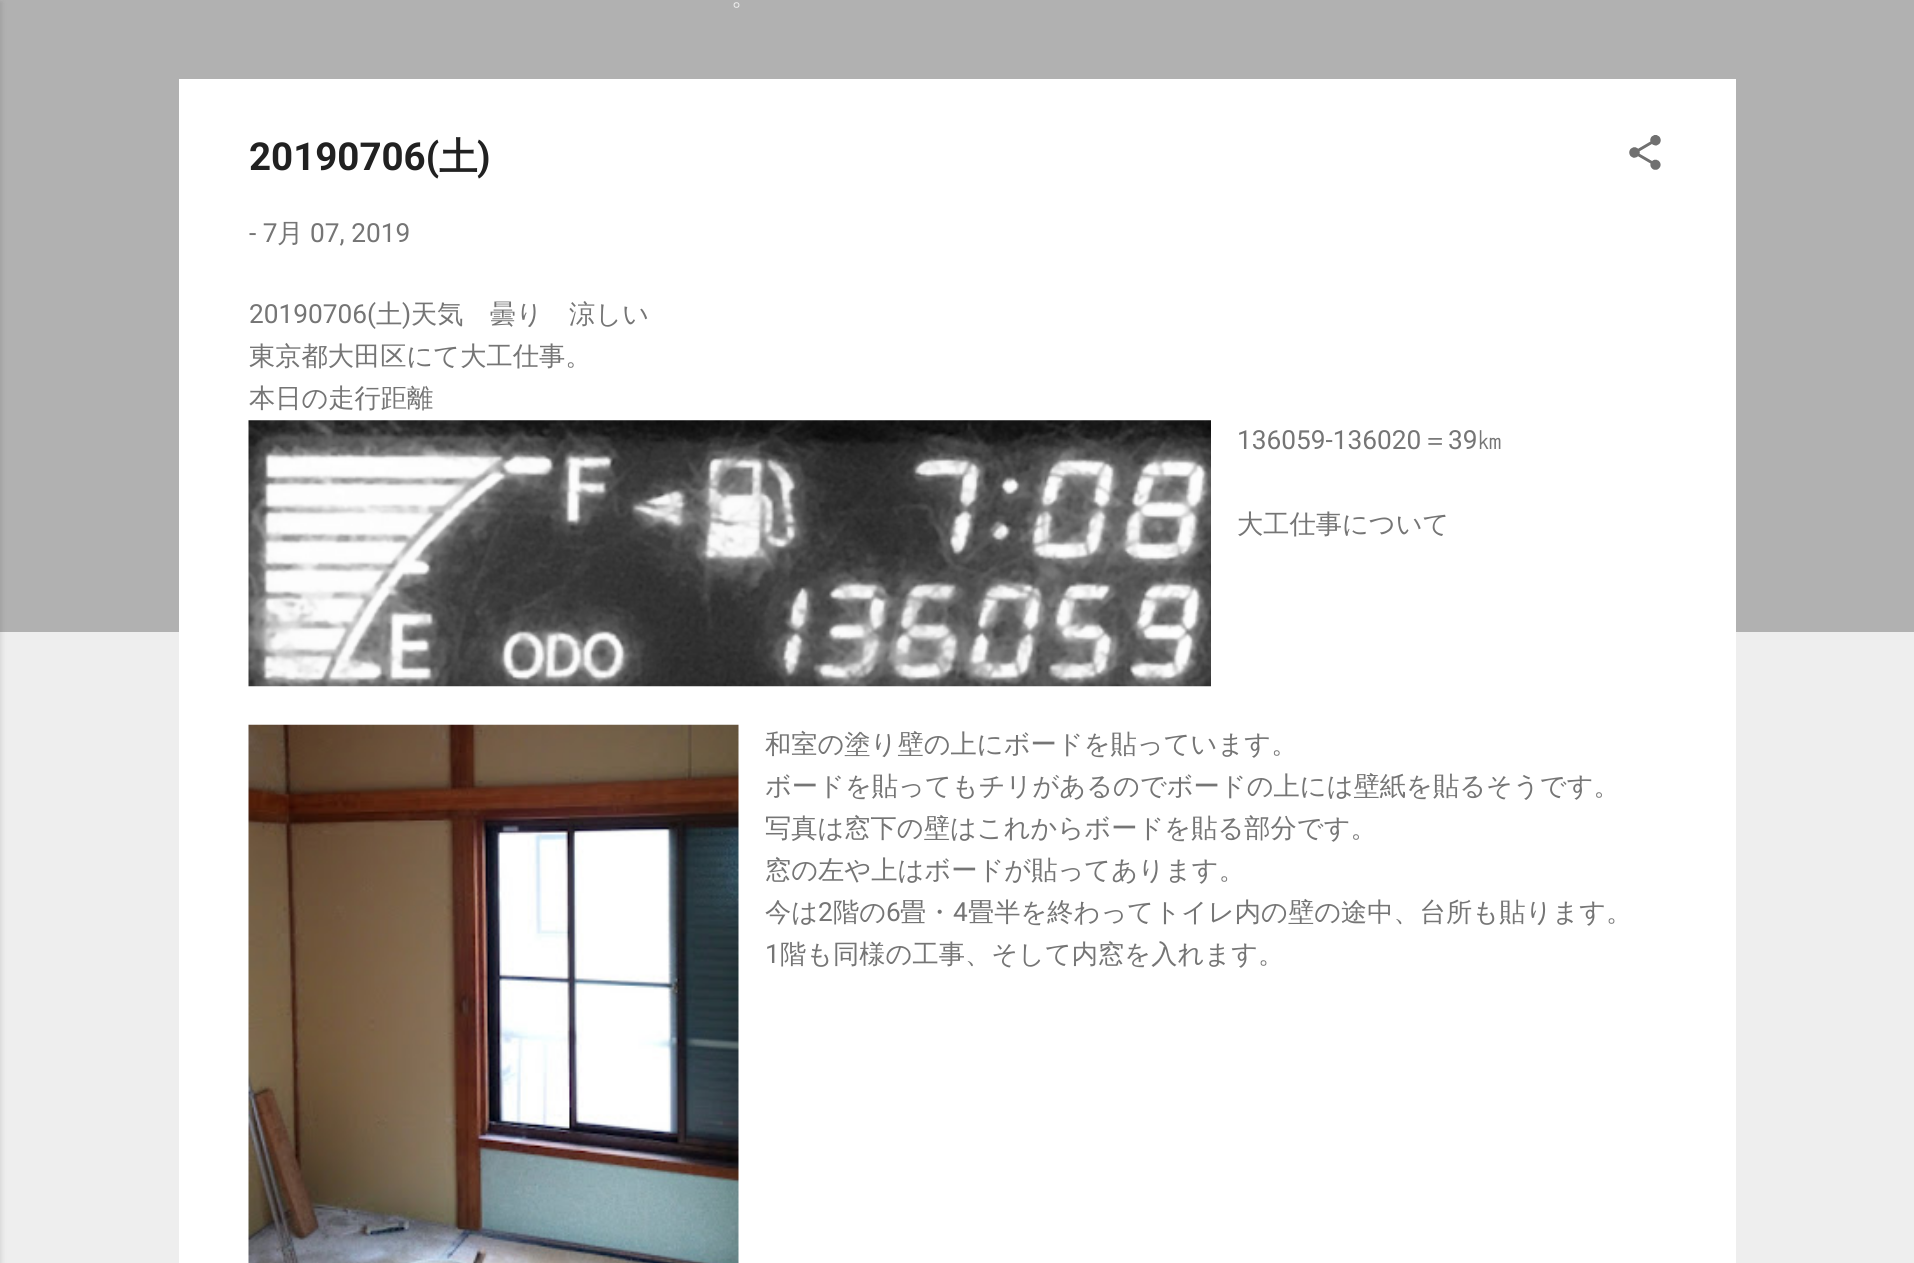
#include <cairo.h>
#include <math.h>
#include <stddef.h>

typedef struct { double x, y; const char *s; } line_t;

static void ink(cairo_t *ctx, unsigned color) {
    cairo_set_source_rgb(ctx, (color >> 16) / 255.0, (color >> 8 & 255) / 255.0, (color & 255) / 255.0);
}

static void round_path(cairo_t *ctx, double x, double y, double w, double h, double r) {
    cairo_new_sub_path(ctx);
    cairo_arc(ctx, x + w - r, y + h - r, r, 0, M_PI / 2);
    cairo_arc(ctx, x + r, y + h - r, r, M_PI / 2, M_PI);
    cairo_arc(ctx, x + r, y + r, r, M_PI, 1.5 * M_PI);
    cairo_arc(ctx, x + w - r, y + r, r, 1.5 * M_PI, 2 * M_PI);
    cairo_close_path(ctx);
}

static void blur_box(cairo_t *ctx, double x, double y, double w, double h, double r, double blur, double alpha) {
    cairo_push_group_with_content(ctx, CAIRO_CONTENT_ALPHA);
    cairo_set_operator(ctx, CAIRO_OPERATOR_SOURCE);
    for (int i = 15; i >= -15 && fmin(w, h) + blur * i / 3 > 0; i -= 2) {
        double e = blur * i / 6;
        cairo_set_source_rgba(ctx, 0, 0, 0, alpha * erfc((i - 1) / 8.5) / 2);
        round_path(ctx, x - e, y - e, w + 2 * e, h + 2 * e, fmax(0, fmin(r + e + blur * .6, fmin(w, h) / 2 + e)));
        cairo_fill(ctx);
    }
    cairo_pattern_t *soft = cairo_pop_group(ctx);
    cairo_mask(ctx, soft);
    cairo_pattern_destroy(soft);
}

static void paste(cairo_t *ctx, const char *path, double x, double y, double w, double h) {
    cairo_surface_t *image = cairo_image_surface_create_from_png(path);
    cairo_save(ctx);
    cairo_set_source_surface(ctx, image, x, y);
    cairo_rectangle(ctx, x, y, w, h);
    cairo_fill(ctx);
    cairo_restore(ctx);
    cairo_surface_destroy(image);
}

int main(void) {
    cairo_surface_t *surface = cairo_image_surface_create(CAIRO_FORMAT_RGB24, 1914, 1263);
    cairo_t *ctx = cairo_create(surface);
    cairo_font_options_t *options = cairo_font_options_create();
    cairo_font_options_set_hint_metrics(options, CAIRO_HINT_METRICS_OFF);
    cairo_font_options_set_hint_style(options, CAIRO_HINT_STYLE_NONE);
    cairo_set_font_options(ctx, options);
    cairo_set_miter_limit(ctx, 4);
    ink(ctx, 0xEEEEEE);
    cairo_paint(ctx);
    ink(ctx, 0xB1B1B1);
    cairo_rectangle(ctx, 0, 0, 1914, 632);
    cairo_fill(ctx);
    ink(ctx, 0x000000);
    blur_box(ctx, -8, 2, 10, 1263, 0, 2.5, 0.1);
    cairo_select_font_face(ctx, "WenQuanYi Zen Hei Medium", CAIRO_FONT_SLANT_NORMAL, CAIRO_FONT_WEIGHT_NORMAL);
    cairo_set_font_size(ctx, 26.25);
    ink(ctx, 0xEFEFEF);
    cairo_move_to(ctx, 731, 5);
    cairo_show_text(ctx, "。");
    ink(ctx, 0xFFFFFF);
    cairo_rectangle(ctx, 179, 79, 1557, 1184);
    cairo_fill(ctx);
    cairo_select_font_face(ctx, "Roboto", CAIRO_FONT_SLANT_NORMAL, CAIRO_FONT_WEIGHT_BOLD);
    cairo_set_font_size(ctx, 38.5);
    ink(ctx, 0x212121);
    cairo_move_to(ctx, 249, 170);
    cairo_show_text(ctx, "20190706(");
    cairo_select_font_face(ctx, "WenQuanYi Zen Hei", CAIRO_FONT_SLANT_NORMAL, CAIRO_FONT_WEIGHT_BOLD);
    cairo_move_to(ctx, 439, 170);
    cairo_show_text(ctx, "土");
    cairo_select_font_face(ctx, "Roboto", CAIRO_FONT_SLANT_NORMAL, CAIRO_FONT_WEIGHT_BOLD);
    cairo_move_to(ctx, 477, 170);
    cairo_show_text(ctx, ")");
    paste(ctx, "media/1.png", 1629, 135, 32, 35);
    cairo_select_font_face(ctx, "Roboto", CAIRO_FONT_SLANT_NORMAL, CAIRO_FONT_WEIGHT_NORMAL);
    cairo_set_font_size(ctx, 26.25);
    ink(ctx, 0x757575);
    cairo_move_to(ctx, 249, 242);
    cairo_show_text(ctx, "- 7");
    cairo_select_font_face(ctx, "WenQuanYi Zen Hei Medium", CAIRO_FONT_SLANT_NORMAL, CAIRO_FONT_WEIGHT_NORMAL);
    cairo_move_to(ctx, 277, 242);
    cairo_show_text(ctx, "月");
    cairo_select_font_face(ctx, "Roboto", CAIRO_FONT_SLANT_NORMAL, CAIRO_FONT_WEIGHT_NORMAL);
    cairo_move_to(ctx, 310, 242);
    cairo_show_text(ctx, "07, 2019");
    cairo_move_to(ctx, 249, 323);
    cairo_show_text(ctx, "20190706(");
    cairo_select_font_face(ctx, "WenQuanYi Zen Hei Medium", CAIRO_FONT_SLANT_NORMAL, CAIRO_FONT_WEIGHT_NORMAL);
    cairo_move_to(ctx, 376, 323);
    cairo_show_text(ctx, "土");
    cairo_select_font_face(ctx, "Roboto", CAIRO_FONT_SLANT_NORMAL, CAIRO_FONT_WEIGHT_NORMAL);
    cairo_move_to(ctx, 402, 323);
    cairo_show_text(ctx, ")");
    cairo_select_font_face(ctx, "WenQuanYi Zen Hei Medium", CAIRO_FONT_SLANT_NORMAL, CAIRO_FONT_WEIGHT_NORMAL);
    {
        static const line_t items[] = {
            {411, 323, "天気　曇り　涼しい"},
            {249, 365, "東京都大田区にて大工仕事。"},
            {249, 407, "本日の走行距離"},
        };
        for (size_t i = 0; i < sizeof items / sizeof *items; i++) {
            cairo_move_to(ctx, items[i].x, items[i].y);
            cairo_show_text(ctx, items[i].s);
        }
    }
    paste(ctx, "media/2.png", 248, 420, 963, 267);
    cairo_select_font_face(ctx, "Roboto", CAIRO_FONT_SLANT_NORMAL, CAIRO_FONT_WEIGHT_NORMAL);
    cairo_move_to(ctx, 1237, 449);
    cairo_show_text(ctx, "136059-136020");
    cairo_select_font_face(ctx, "WenQuanYi Zen Hei Medium", CAIRO_FONT_SLANT_NORMAL, CAIRO_FONT_WEIGHT_NORMAL);
    cairo_move_to(ctx, 1422, 449);
    cairo_show_text(ctx, "＝");
    cairo_select_font_face(ctx, "Roboto", CAIRO_FONT_SLANT_NORMAL, CAIRO_FONT_WEIGHT_NORMAL);
    cairo_move_to(ctx, 1448, 449);
    cairo_show_text(ctx, "39");
    cairo_select_font_face(ctx, "WenQuanYi Zen Hei Medium", CAIRO_FONT_SLANT_NORMAL, CAIRO_FONT_WEIGHT_NORMAL);
    cairo_move_to(ctx, 1477, 449);
    cairo_show_text(ctx, "㎞");
    cairo_move_to(ctx, 1237, 533);
    cairo_show_text(ctx, "大工仕事について");
    paste(ctx, "media/3.png", 248, 724, 491, 539);
    {
        static const line_t items[] = {
            {765, 753, "和室の塗り壁の上にボードを貼っています。"},
            {765, 795, "ボードを貼ってもチリがあるのでボードの上には壁紙を貼るそうです。"},
            {765, 837, "写真は窓下の壁はこれからボードを貼る部分です。"},
            {765, 879, "窓の左や上はボードが貼ってあります。"},
            {765, 921, "今は"},
        };
        for (size_t i = 0; i < sizeof items / sizeof *items; i++) {
            cairo_move_to(ctx, items[i].x, items[i].y);
            cairo_show_text(ctx, items[i].s);
        }
    }
    cairo_select_font_face(ctx, "Roboto", CAIRO_FONT_SLANT_NORMAL, CAIRO_FONT_WEIGHT_NORMAL);
    cairo_move_to(ctx, 818, 921);
    cairo_show_text(ctx, "2");
    cairo_select_font_face(ctx, "WenQuanYi Zen Hei Medium", CAIRO_FONT_SLANT_NORMAL, CAIRO_FONT_WEIGHT_NORMAL);
    cairo_move_to(ctx, 833, 921);
    cairo_show_text(ctx, "階の");
    cairo_select_font_face(ctx, "Roboto", CAIRO_FONT_SLANT_NORMAL, CAIRO_FONT_WEIGHT_NORMAL);
    cairo_move_to(ctx, 886, 921);
    cairo_show_text(ctx, "6");
    cairo_select_font_face(ctx, "WenQuanYi Zen Hei Medium", CAIRO_FONT_SLANT_NORMAL, CAIRO_FONT_WEIGHT_NORMAL);
    cairo_move_to(ctx, 900, 921);
    cairo_show_text(ctx, "畳・");
    cairo_select_font_face(ctx, "Roboto", CAIRO_FONT_SLANT_NORMAL, CAIRO_FONT_WEIGHT_NORMAL);
    cairo_move_to(ctx, 953, 921);
    cairo_show_text(ctx, "4");
    cairo_select_font_face(ctx, "WenQuanYi Zen Hei Medium", CAIRO_FONT_SLANT_NORMAL, CAIRO_FONT_WEIGHT_NORMAL);
    cairo_move_to(ctx, 968, 921);
    cairo_show_text(ctx, "畳半を終わってトイレ内の壁の途中、台所も貼ります。");
    cairo_select_font_face(ctx, "Roboto", CAIRO_FONT_SLANT_NORMAL, CAIRO_FONT_WEIGHT_NORMAL);
    cairo_move_to(ctx, 765, 963);
    cairo_show_text(ctx, "1");
    cairo_select_font_face(ctx, "WenQuanYi Zen Hei Medium", CAIRO_FONT_SLANT_NORMAL, CAIRO_FONT_WEIGHT_NORMAL);
    cairo_move_to(ctx, 780, 963);
    cairo_show_text(ctx, "階も同様の工事、そして内窓を入れます。");
    cairo_surface_write_to_png(surface, "image.png");
    cairo_font_options_destroy(options);
    cairo_destroy(ctx);
    cairo_surface_destroy(surface);
    return 0;
}
